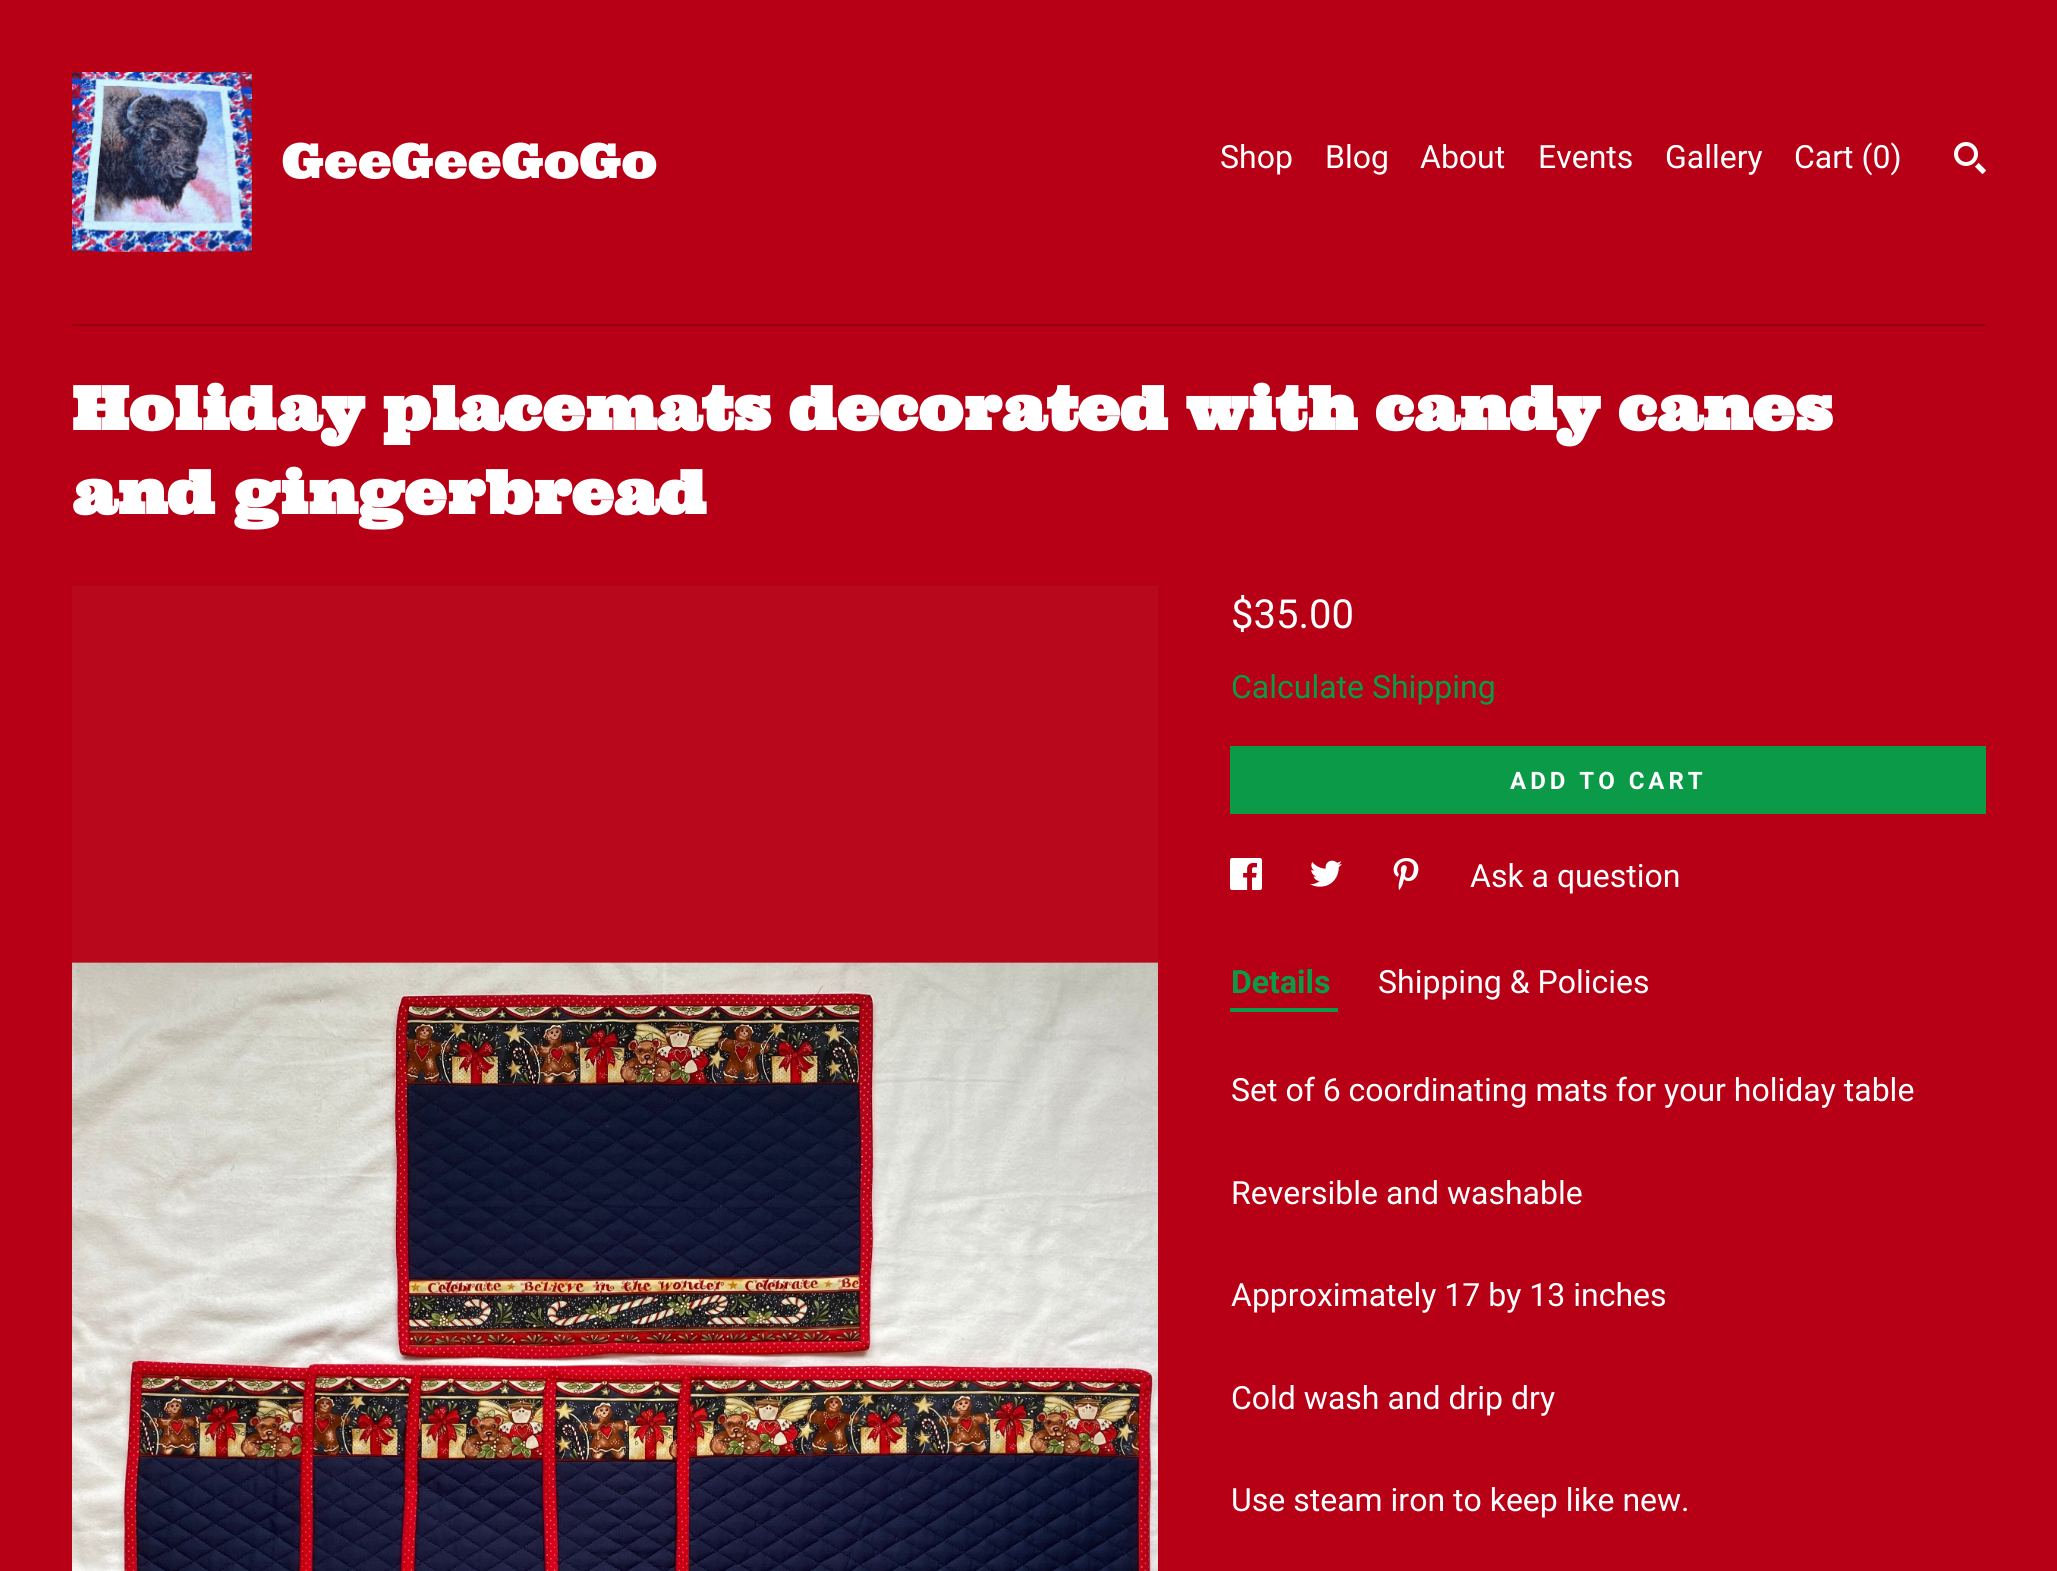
#include <cairo.h>
#include <math.h>
#include <stddef.h>

typedef struct { double x, y; const char *s; } line_t;

static void ink(cairo_t *ctx, unsigned color) {
    cairo_set_source_rgb(ctx, (color >> 16) / 255.0, (color >> 8 & 255) / 255.0, (color & 255) / 255.0);
}

static void write_spaced(cairo_t *ctx, double x, double y, const char *s, double letter, double word) {
    cairo_move_to(ctx, x, y);
    while (*s) {
        char ch[5] = {0};
        int n = 0;
        do ch[n++] = *s++; while ((*s & 0xC0) == 0x80);
        cairo_show_text(ctx, ch);
        cairo_rel_move_to(ctx, letter + word * (*ch == ' '), 0);
    }
}

static void paste(cairo_t *ctx, const char *path, double x, double y, double w, double h) {
    cairo_surface_t *image = cairo_image_surface_create_from_png(path);
    cairo_save(ctx);
    cairo_set_source_surface(ctx, image, x, y);
    cairo_rectangle(ctx, x, y, w, h);
    cairo_fill(ctx);
    cairo_restore(ctx);
    cairo_surface_destroy(image);
}

int main(void) {
    cairo_surface_t *surface = cairo_image_surface_create(CAIRO_FORMAT_RGB24, 2057, 1571);
    cairo_t *ctx = cairo_create(surface);
    cairo_font_options_t *options = cairo_font_options_create();
    cairo_font_options_set_hint_metrics(options, CAIRO_HINT_METRICS_OFF);
    cairo_font_options_set_hint_style(options, CAIRO_HINT_STYLE_NONE);
    cairo_set_font_options(ctx, options);
    cairo_set_miter_limit(ctx, 4);
    ink(ctx, 0xB70015);
    cairo_paint(ctx);
    paste(ctx, "media/1.png", 72, 72, 180, 180);
    cairo_select_font_face(ctx, "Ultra", CAIRO_FONT_SLANT_NORMAL, CAIRO_FONT_WEIGHT_NORMAL);
    cairo_set_font_size(ctx, 48);
    ink(ctx, 0xFFFFFF);
    cairo_move_to(ctx, 282, 178);
    cairo_show_text(ctx, "GeeGeeGoGo");
    cairo_select_font_face(ctx, "Roboto", CAIRO_FONT_SLANT_NORMAL, CAIRO_FONT_WEIGHT_NORMAL);
    cairo_set_font_size(ctx, 32);
    {
        static const line_t items[] = {
            {1220, 168, "Shop"},
            {1325, 168, "Blog"},
            {1420, 168, "About"},
            {1538, 168, "Events"},
            {1665, 168, "Gallery"},
            {1794, 168, "Cart (0)"},
        };
        for (size_t i = 0; i < sizeof items / sizeof *items; i++) {
            cairo_move_to(ctx, items[i].x, items[i].y);
            cairo_show_text(ctx, items[i].s);
        }
    }
    paste(ctx, "media/2.png", 1954, 142, 32, 32);
    ink(ctx, 0x920011);
    cairo_rectangle(ctx, 72, 324, 1914, 2);
    cairo_fill(ctx);
    cairo_select_font_face(ctx, "Ultra", CAIRO_FONT_SLANT_NORMAL, CAIRO_FONT_WEIGHT_BOLD);
    cairo_set_font_size(ctx, 60);
    ink(ctx, 0xFFFFFF);
    cairo_move_to(ctx, 72, 430);
    cairo_show_text(ctx, "Holiday placemats decorated with candy canes");
    cairo_move_to(ctx, 72, 514);
    cairo_show_text(ctx, "and gingerbread");
    ink(ctx, 0xB8081C);
    cairo_rectangle(ctx, 72, 586, 1086, 377);
    cairo_fill(ctx);
    paste(ctx, "media/3.png", 72, 962, 1086, 609);
    cairo_select_font_face(ctx, "Roboto", CAIRO_FONT_SLANT_NORMAL, CAIRO_FONT_WEIGHT_NORMAL);
    cairo_set_font_size(ctx, 40);
    ink(ctx, 0xFFFFFF);
    cairo_move_to(ctx, 1231, 628);
    cairo_show_text(ctx, "$35.00");
    cairo_set_font_size(ctx, 32);
    ink(ctx, 0x0B9B48);
    cairo_move_to(ctx, 1231, 698);
    cairo_show_text(ctx, "Calculate Shipping");
    cairo_rectangle(ctx, 1230, 746, 756, 68);
    cairo_fill(ctx);
    cairo_select_font_face(ctx, "Roboto", CAIRO_FONT_SLANT_NORMAL, CAIRO_FONT_WEIGHT_BOLD);
    cairo_set_font_size(ctx, 24);
    ink(ctx, 0xFFFFFF);
    write_spaced(ctx, 1510, 789, "ADD TO CART", 4, 0);
    paste(ctx, "media/4.png", 1230, 858, 32, 32);
    paste(ctx, "media/5.png", 1310, 860, 32, 27);
    paste(ctx, "media/6.png", 1393, 858, 26, 32);
    cairo_select_font_face(ctx, "Roboto", CAIRO_FONT_SLANT_NORMAL, CAIRO_FONT_WEIGHT_NORMAL);
    cairo_set_font_size(ctx, 32);
    cairo_move_to(ctx, 1470, 887);
    cairo_show_text(ctx, "Ask a question");
    cairo_select_font_face(ctx, "Roboto", CAIRO_FONT_SLANT_NORMAL, CAIRO_FONT_WEIGHT_BOLD);
    ink(ctx, 0x0B9B48);
    cairo_move_to(ctx, 1231, 993);
    cairo_show_text(ctx, "Details");
    cairo_rectangle(ctx, 1230, 1008, 108, 4);
    cairo_fill(ctx);
    cairo_select_font_face(ctx, "Roboto", CAIRO_FONT_SLANT_NORMAL, CAIRO_FONT_WEIGHT_NORMAL);
    ink(ctx, 0xFFFFFF);
    {
        static const line_t items[] = {
            {1378, 993, "Shipping & Policies"},
            {1231, 1101, "Set of 6 coordinating mats for your holiday table"},
            {1231, 1204, "Reversible and washable"},
            {1231, 1306, "Approximately 17 by 13 inches"},
            {1231, 1409, "Cold wash and drip dry"},
            {1231, 1511, "Use steam iron to keep like new."},
        };
        for (size_t i = 0; i < sizeof items / sizeof *items; i++) {
            cairo_move_to(ctx, items[i].x, items[i].y);
            cairo_show_text(ctx, items[i].s);
        }
    }
    cairo_surface_write_to_png(surface, "image.png");
    cairo_font_options_destroy(options);
    cairo_destroy(ctx);
    cairo_surface_destroy(surface);
    return 0;
}
